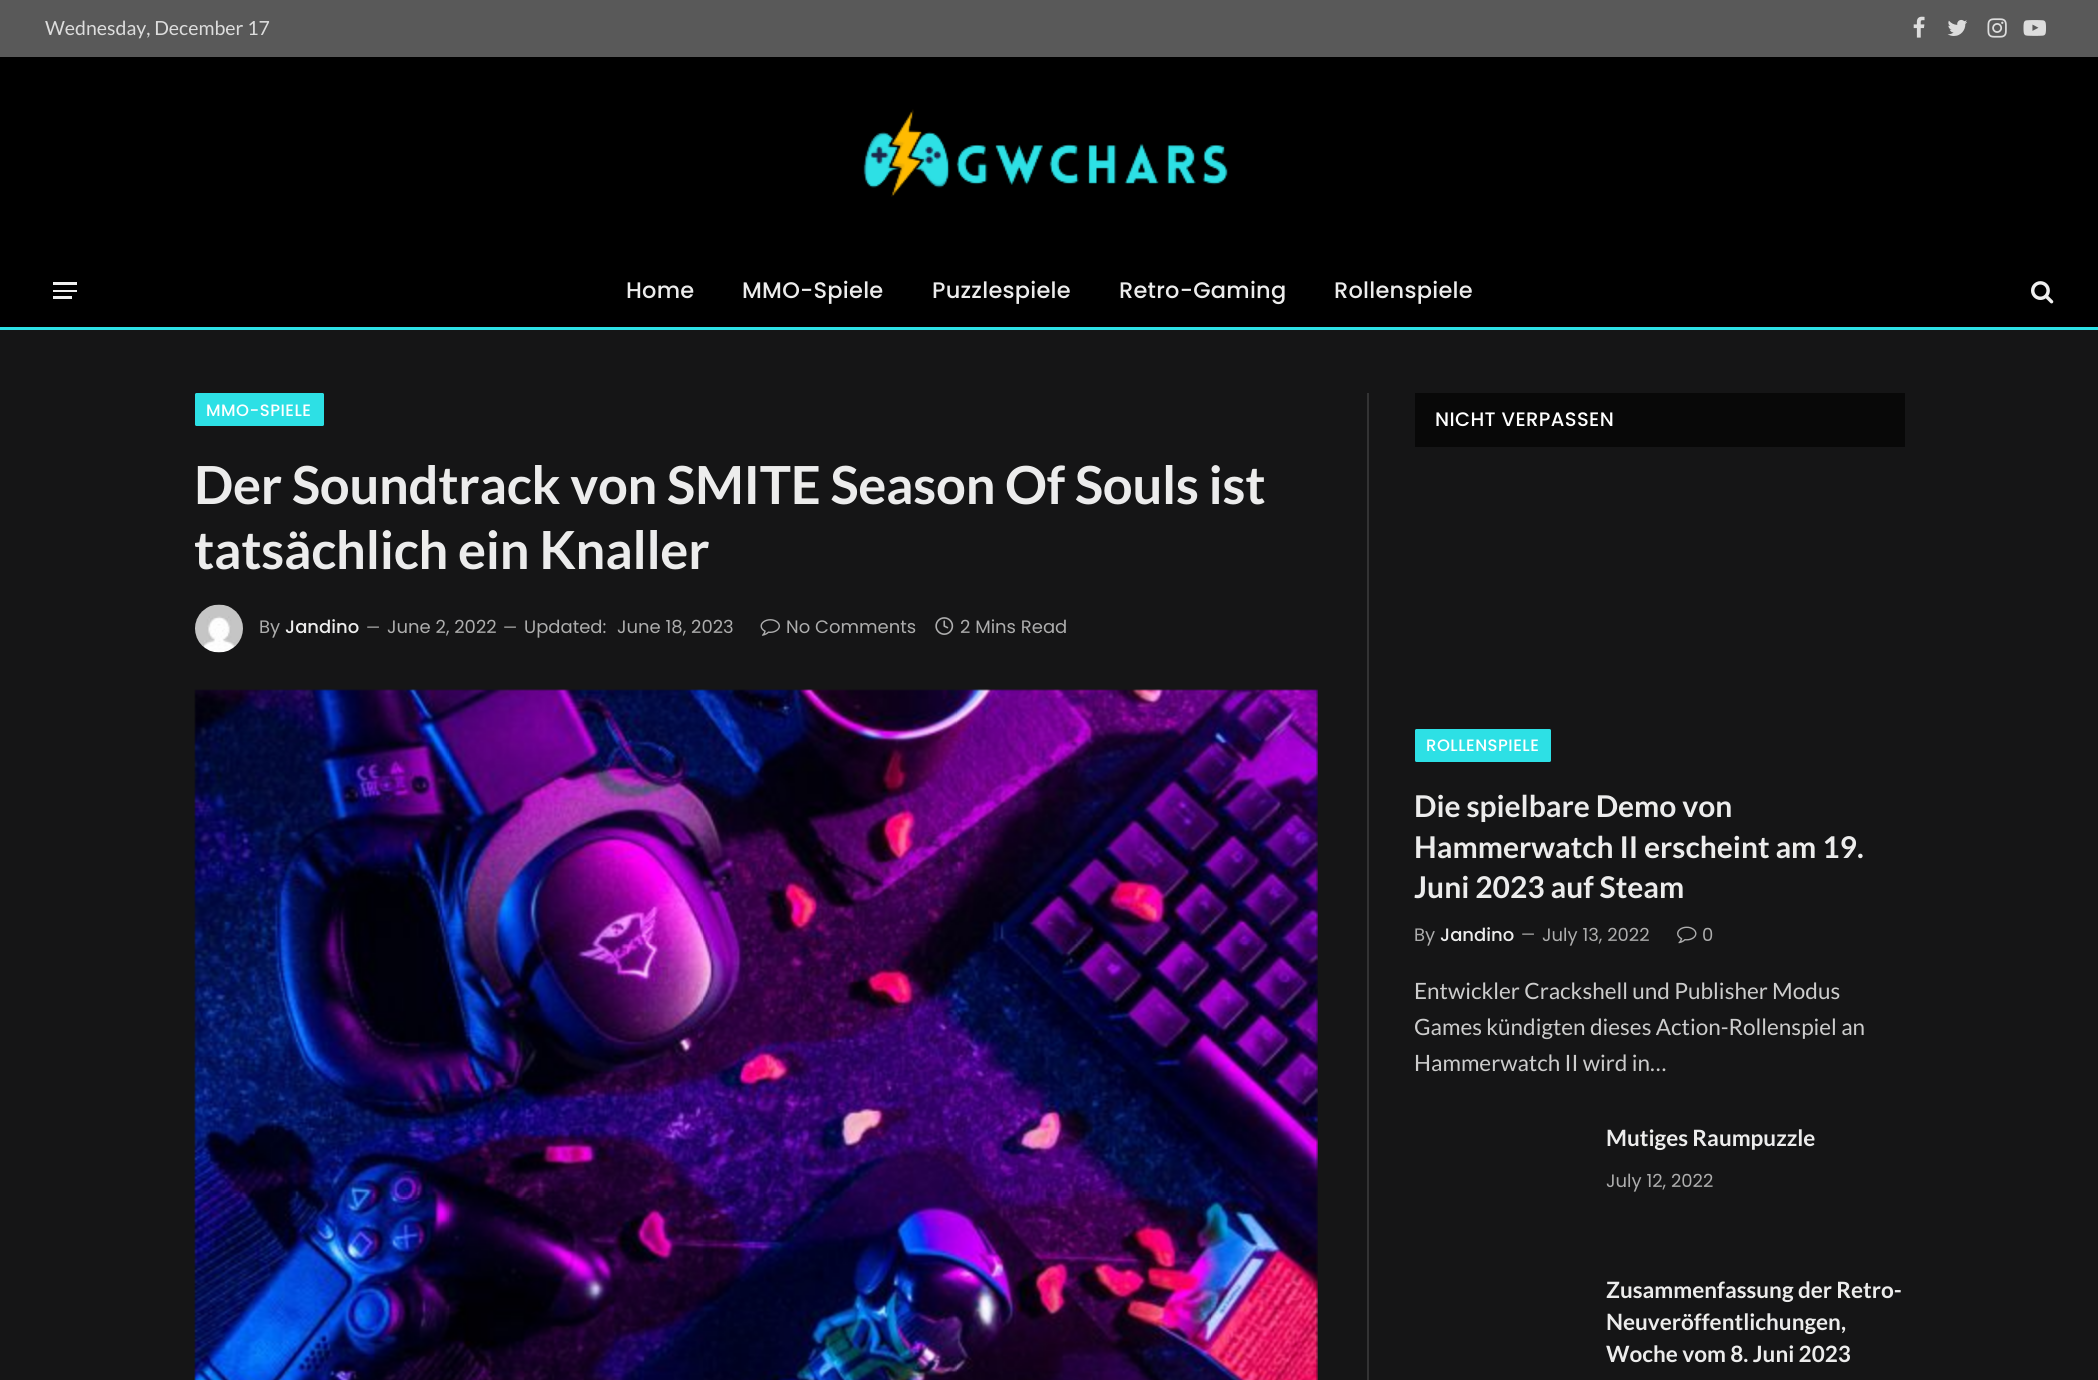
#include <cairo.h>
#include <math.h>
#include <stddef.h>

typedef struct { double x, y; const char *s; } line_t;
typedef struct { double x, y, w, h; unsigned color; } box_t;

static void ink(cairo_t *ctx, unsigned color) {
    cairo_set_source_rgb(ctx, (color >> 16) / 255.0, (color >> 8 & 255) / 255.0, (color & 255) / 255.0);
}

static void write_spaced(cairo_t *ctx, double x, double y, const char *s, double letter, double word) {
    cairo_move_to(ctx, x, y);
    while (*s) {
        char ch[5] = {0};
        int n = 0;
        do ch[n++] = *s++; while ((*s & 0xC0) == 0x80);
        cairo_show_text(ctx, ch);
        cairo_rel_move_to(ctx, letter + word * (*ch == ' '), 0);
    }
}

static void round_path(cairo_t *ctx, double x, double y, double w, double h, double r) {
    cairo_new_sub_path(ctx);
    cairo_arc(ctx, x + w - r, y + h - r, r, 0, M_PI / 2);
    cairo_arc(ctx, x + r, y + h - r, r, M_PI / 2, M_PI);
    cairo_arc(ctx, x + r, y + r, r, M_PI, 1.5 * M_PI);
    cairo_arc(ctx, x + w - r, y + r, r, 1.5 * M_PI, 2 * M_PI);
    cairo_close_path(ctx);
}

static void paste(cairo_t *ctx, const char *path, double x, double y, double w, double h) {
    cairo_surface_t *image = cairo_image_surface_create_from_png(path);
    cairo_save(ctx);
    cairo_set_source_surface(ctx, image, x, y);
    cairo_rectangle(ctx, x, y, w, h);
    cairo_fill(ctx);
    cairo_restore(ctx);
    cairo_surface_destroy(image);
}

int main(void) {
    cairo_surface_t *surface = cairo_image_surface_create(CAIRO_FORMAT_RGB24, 2098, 1380);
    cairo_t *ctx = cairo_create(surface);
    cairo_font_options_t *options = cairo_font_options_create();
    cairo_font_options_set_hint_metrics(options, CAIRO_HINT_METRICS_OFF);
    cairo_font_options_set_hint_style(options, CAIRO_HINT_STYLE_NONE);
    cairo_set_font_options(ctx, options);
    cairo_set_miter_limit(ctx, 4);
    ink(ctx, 0x151516);
    cairo_paint(ctx);
    ink(ctx, 0x595959);
    cairo_rectangle(ctx, 0, 0, 2098, 57);
    cairo_fill(ctx);
    cairo_select_font_face(ctx, "Lato", CAIRO_FONT_SLANT_NORMAL, CAIRO_FONT_WEIGHT_NORMAL);
    cairo_set_font_size(ctx, 19.5);
    ink(ctx, 0xDDDDDD);
    cairo_move_to(ctx, 45, 35);
    cairo_show_text(ctx, "Wednesday, December 17");
    paste(ctx, "media/1.png", 1913, 16, 12, 22);
    paste(ctx, "media/2.png", 1947, 19, 20, 17);
    paste(ctx, "media/3.png", 1987, 18, 20, 20);
    paste(ctx, "media/4.png", 2023, 20, 23, 16);
    ink(ctx, 0x000000);
    cairo_rectangle(ctx, 0, 57, 2098, 270);
    cairo_fill(ctx);
    paste(ctx, "media/5.png", 863, 109, 365, 88);
    {
        static const box_t items[] = {
            {0, 327, 2098, 3, 0x2DE0E5},
            {53, 296, 19, 3, 0xF0F0F0},
            {53, 282, 24, 3, 0xF0F0F0},
            {53, 290, 24, 2, 0xF0F0F0},
        };
        for (size_t i = 0; i < sizeof items / sizeof *items; i++) {
            ink(ctx, items[i].color);
            cairo_rectangle(ctx, items[i].x, items[i].y, items[i].w, items[i].h);
            cairo_fill(ctx);
        }
    }
    cairo_select_font_face(ctx, "Poppins Medium", CAIRO_FONT_SLANT_NORMAL, CAIRO_FONT_WEIGHT_NORMAL);
    cairo_set_font_size(ctx, 22.5);
    ink(ctx, 0xECECEC);
    {
        static const line_t items[] = {
            {626, 298, "Home"},
            {742, 298, "MMO-Spiele"},
            {932, 298, "Puzzlespiele"},
            {1119, 298, "Retro-Gaming"},
            {1334, 298, "Rollenspiele"},
        };
        for (size_t i = 0; i < sizeof items / sizeof *items; i++) {
            write_spaced(ctx, items[i].x, items[i].y, items[i].s, 0.25, 0);
        }
    }
    paste(ctx, "media/6.png", 2031, 281, 23, 23);
    ink(ctx, 0x2DE0E5);
    round_path(ctx, 195, 393, 129, 33, 1.5);
    cairo_fill(ctx);
    cairo_set_font_size(ctx, 16.5);
    ink(ctx, 0xFFFFFF);
    write_spaced(ctx, 206, 416, "MMO-SPIELE", 0.5, 0);
    cairo_select_font_face(ctx, "Lato", CAIRO_FONT_SLANT_NORMAL, CAIRO_FONT_WEIGHT_BOLD);
    cairo_set_font_size(ctx, 52.5);
    ink(ctx, 0xECECEC);
    write_spaced(ctx, 194, 504, "Der Soundtrack von SMITE Season Of Souls ist", -0.25, 0);
    write_spaced(ctx, 194, 569, "tatsächlich ein Knaller", -0.25, 0);
    paste(ctx, "media/7.png", 195, 604, 48, 49);
    cairo_select_font_face(ctx, "Poppins", CAIRO_FONT_SLANT_NORMAL, CAIRO_FONT_WEIGHT_NORMAL);
    cairo_set_font_size(ctx, 18);
    ink(ctx, 0xADADAD);
    cairo_move_to(ctx, 259, 633);
    cairo_show_text(ctx, "By");
    cairo_select_font_face(ctx, "Poppins Medium", CAIRO_FONT_SLANT_NORMAL, CAIRO_FONT_WEIGHT_NORMAL);
    ink(ctx, 0xECECEC);
    cairo_move_to(ctx, 285, 633);
    cairo_show_text(ctx, "Jandino");
    cairo_select_font_face(ctx, "Poppins", CAIRO_FONT_SLANT_NORMAL, CAIRO_FONT_WEIGHT_NORMAL);
    cairo_set_font_size(ctx, 16);
    ink(ctx, 0xADADAD);
    cairo_move_to(ctx, 366, 633);
    cairo_show_text(ctx, "—");
    cairo_set_font_size(ctx, 18);
    cairo_move_to(ctx, 387, 633);
    cairo_show_text(ctx, "June 2, 2022");
    cairo_set_font_size(ctx, 16);
    cairo_move_to(ctx, 503, 633);
    cairo_show_text(ctx, "—");
    cairo_set_font_size(ctx, 18);
    cairo_move_to(ctx, 524, 633);
    cairo_show_text(ctx, "Updated:");
    cairo_move_to(ctx, 617, 633);
    cairo_show_text(ctx, "June 18, 2023");
    paste(ctx, "media/8.png", 760, 619, 20, 17);
    cairo_move_to(ctx, 786, 633);
    cairo_show_text(ctx, "No Comments");
    paste(ctx, "media/9.png", 935, 617, 19, 18);
    cairo_move_to(ctx, 960, 633);
    cairo_show_text(ctx, "2 Mins Read");
    paste(ctx, "media/10.png", 194, 689, 1124, 691);
    ink(ctx, 0x333334);
    cairo_rectangle(ctx, 1367, 393, 2, 987);
    cairo_fill(ctx);
    ink(ctx, 0x080808);
    cairo_rectangle(ctx, 1415, 393, 490, 54);
    cairo_fill(ctx);
    cairo_select_font_face(ctx, "Poppins Medium", CAIRO_FONT_SLANT_NORMAL, CAIRO_FONT_WEIGHT_NORMAL);
    cairo_set_font_size(ctx, 19.5);
    ink(ctx, 0xFFFFFF);
    write_spaced(ctx, 1435, 426, "NICHT VERPASSEN", 0.4, 0);
    ink(ctx, 0x2DE0E5);
    round_path(ctx, 1415, 729, 136, 33, 1.5);
    cairo_fill(ctx);
    cairo_set_font_size(ctx, 16.5);
    ink(ctx, 0xFFFFFF);
    write_spaced(ctx, 1426, 751, "ROLLENSPIELE", 0.5, 0);
    cairo_select_font_face(ctx, "Lato", CAIRO_FONT_SLANT_NORMAL, CAIRO_FONT_WEIGHT_BOLD);
    cairo_set_font_size(ctx, 30);
    ink(ctx, 0xECECEC);
    {
        static const line_t items[] = {
            {1414, 817, "Die spielbare Demo von"},
            {1414, 858, "Hammerwatch II erscheint am 19."},
            {1414, 898, "Juni 2023 auf Steam"},
        };
        for (size_t i = 0; i < sizeof items / sizeof *items; i++) {
            cairo_move_to(ctx, items[i].x, items[i].y);
            cairo_show_text(ctx, items[i].s);
        }
    }
    cairo_select_font_face(ctx, "Poppins", CAIRO_FONT_SLANT_NORMAL, CAIRO_FONT_WEIGHT_NORMAL);
    cairo_set_font_size(ctx, 18);
    ink(ctx, 0xADADAD);
    cairo_move_to(ctx, 1414, 941);
    cairo_show_text(ctx, "By");
    cairo_select_font_face(ctx, "Poppins Medium", CAIRO_FONT_SLANT_NORMAL, CAIRO_FONT_WEIGHT_NORMAL);
    ink(ctx, 0xECECEC);
    cairo_move_to(ctx, 1440, 941);
    cairo_show_text(ctx, "Jandino");
    cairo_select_font_face(ctx, "Poppins", CAIRO_FONT_SLANT_NORMAL, CAIRO_FONT_WEIGHT_NORMAL);
    cairo_set_font_size(ctx, 16);
    ink(ctx, 0xADADAD);
    cairo_move_to(ctx, 1521, 940);
    cairo_show_text(ctx, "—");
    cairo_set_font_size(ctx, 18);
    cairo_move_to(ctx, 1542, 941);
    cairo_show_text(ctx, "July 13, 2022");
    paste(ctx, "media/11.png", 1677, 926, 20, 18);
    cairo_move_to(ctx, 1702, 941);
    cairo_show_text(ctx, "0");
    cairo_select_font_face(ctx, "Lato", CAIRO_FONT_SLANT_NORMAL, CAIRO_FONT_WEIGHT_NORMAL);
    cairo_set_font_size(ctx, 22.5);
    ink(ctx, 0xCCCCCC);
    {
        static const line_t items[] = {
            {1414, 999, "Entwickler Crackshell und Publisher Modus"},
            {1414, 1035, "Games kündigten dieses Action-Rollenspiel an"},
            {1414, 1071, "Hammerwatch II wird in…"},
        };
        for (size_t i = 0; i < sizeof items / sizeof *items; i++) {
            cairo_move_to(ctx, items[i].x, items[i].y);
            cairo_show_text(ctx, items[i].s);
        }
    }
    cairo_select_font_face(ctx, "Lato", CAIRO_FONT_SLANT_NORMAL, CAIRO_FONT_WEIGHT_BOLD);
    ink(ctx, 0xECECEC);
    cairo_move_to(ctx, 1606, 1146);
    cairo_show_text(ctx, "Mutiges Raumpuzzle");
    cairo_select_font_face(ctx, "Poppins", CAIRO_FONT_SLANT_NORMAL, CAIRO_FONT_WEIGHT_NORMAL);
    cairo_set_font_size(ctx, 18);
    ink(ctx, 0xADADAD);
    cairo_move_to(ctx, 1606, 1187);
    cairo_show_text(ctx, "July 12, 2022");
    cairo_select_font_face(ctx, "Lato", CAIRO_FONT_SLANT_NORMAL, CAIRO_FONT_WEIGHT_BOLD);
    cairo_set_font_size(ctx, 22.5);
    ink(ctx, 0xECECEC);
    {
        static const line_t items[] = {
            {1606, 1298, "Zusammenfassung der Retro-"},
            {1606, 1330, "Neuveröffentlichungen,"},
            {1606, 1362, "Woche vom 8. Juni 2023"},
        };
        for (size_t i = 0; i < sizeof items / sizeof *items; i++) {
            cairo_move_to(ctx, items[i].x, items[i].y);
            cairo_show_text(ctx, items[i].s);
        }
    }
    cairo_surface_write_to_png(surface, "image.png");
    cairo_font_options_destroy(options);
    cairo_destroy(ctx);
    cairo_surface_destroy(surface);
    return 0;
}
